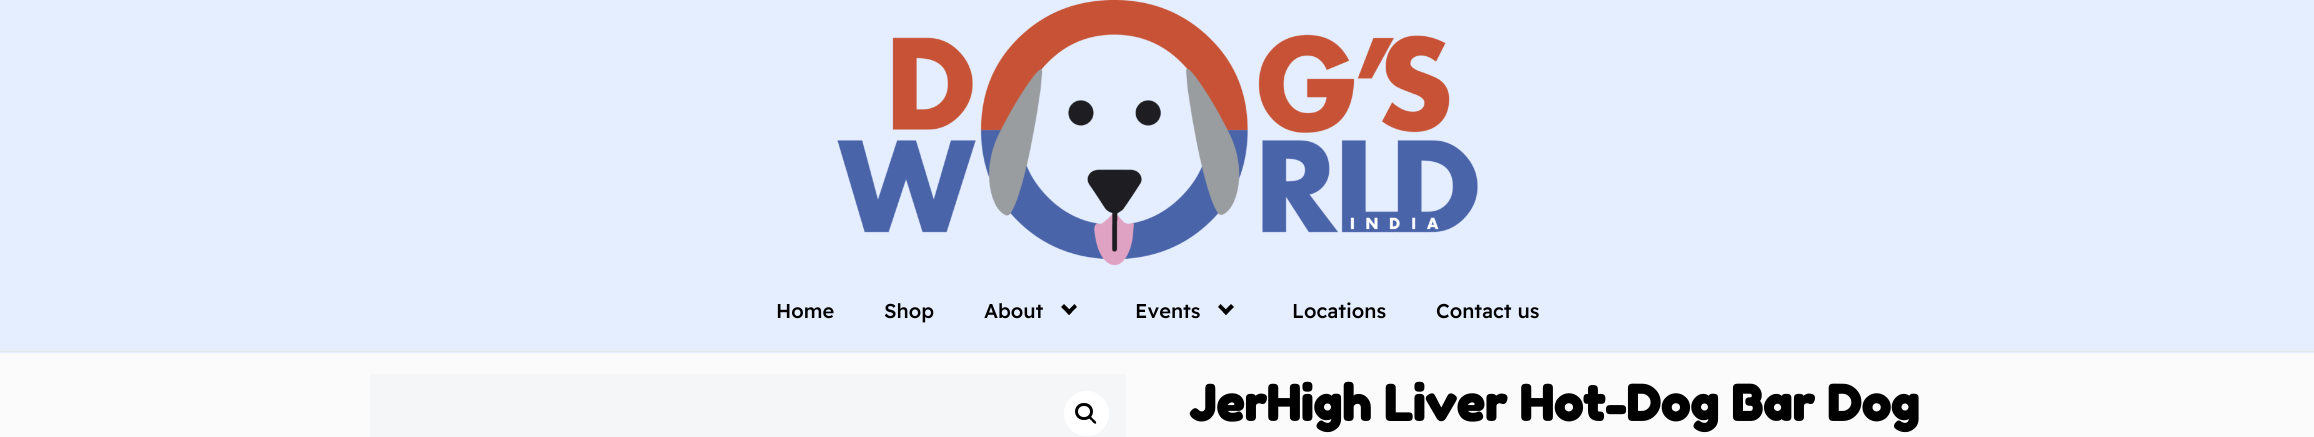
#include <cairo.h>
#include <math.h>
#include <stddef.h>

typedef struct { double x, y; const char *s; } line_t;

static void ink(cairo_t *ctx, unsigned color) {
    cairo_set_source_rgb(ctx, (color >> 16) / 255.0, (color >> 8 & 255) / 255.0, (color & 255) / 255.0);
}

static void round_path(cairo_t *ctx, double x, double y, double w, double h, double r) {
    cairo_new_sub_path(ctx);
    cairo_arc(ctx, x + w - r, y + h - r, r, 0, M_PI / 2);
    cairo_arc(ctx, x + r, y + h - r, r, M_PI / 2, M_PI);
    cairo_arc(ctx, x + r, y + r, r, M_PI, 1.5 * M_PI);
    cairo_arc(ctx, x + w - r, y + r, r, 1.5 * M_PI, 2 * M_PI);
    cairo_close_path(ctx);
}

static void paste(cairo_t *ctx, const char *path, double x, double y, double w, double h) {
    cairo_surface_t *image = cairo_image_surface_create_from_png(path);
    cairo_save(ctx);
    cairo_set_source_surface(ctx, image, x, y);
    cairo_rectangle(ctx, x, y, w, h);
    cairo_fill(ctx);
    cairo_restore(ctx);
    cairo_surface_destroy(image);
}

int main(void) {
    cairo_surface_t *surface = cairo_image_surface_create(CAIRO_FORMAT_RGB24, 2314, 437);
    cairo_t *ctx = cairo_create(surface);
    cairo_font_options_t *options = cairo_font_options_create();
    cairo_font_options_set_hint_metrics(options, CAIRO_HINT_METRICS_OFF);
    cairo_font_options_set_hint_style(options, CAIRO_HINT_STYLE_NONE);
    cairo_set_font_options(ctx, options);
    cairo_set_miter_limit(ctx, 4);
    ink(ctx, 0xFBFBFB);
    cairo_paint(ctx);
    ink(ctx, 0xE5EEFF);
    cairo_rectangle(ctx, 0, 0, 2314, 353);
    cairo_fill(ctx);
    ink(ctx, 0xE6E6E6);
    cairo_rectangle(ctx, 0, 351, 2314, 1);
    cairo_fill(ctx);
    paste(ctx, "media/1.png", 837, 0, 641, 266);
    cairo_select_font_face(ctx, "Readex Pro Medium", CAIRO_FONT_SLANT_NORMAL, CAIRO_FONT_WEIGHT_NORMAL);
    cairo_set_font_size(ctx, 20);
    ink(ctx, 0x000000);
    {
        static const line_t items[] = {
            {776, 318, "Home"},
            {884, 318, "Shop"},
            {984, 318, "About"},
        };
        for (size_t i = 0; i < sizeof items / sizeof *items; i++) {
            cairo_move_to(ctx, items[i].x, items[i].y);
            cairo_show_text(ctx, items[i].s);
        }
    }
    cairo_new_path(ctx);
    cairo_move_to(ctx, 1077, 307);
    cairo_line_to(ctx, 1069, 315);
    cairo_line_to(ctx, 1066.5, 312);
    cairo_line_to(ctx, 1074.5, 304);
    cairo_close_path(ctx);
    cairo_fill(ctx);
    cairo_new_path(ctx);
    cairo_move_to(ctx, 1072, 312);
    cairo_line_to(ctx, 1069, 315);
    cairo_line_to(ctx, 1061, 307);
    cairo_line_to(ctx, 1064, 304);
    cairo_close_path(ctx);
    cairo_fill(ctx);
    cairo_move_to(ctx, 1135, 318);
    cairo_show_text(ctx, "Events");
    cairo_new_path(ctx);
    cairo_move_to(ctx, 1234, 307);
    cairo_line_to(ctx, 1226, 315);
    cairo_line_to(ctx, 1223, 312);
    cairo_line_to(ctx, 1231, 304);
    cairo_close_path(ctx);
    cairo_fill(ctx);
    cairo_new_path(ctx);
    cairo_move_to(ctx, 1228.5, 312);
    cairo_line_to(ctx, 1226, 315);
    cairo_line_to(ctx, 1218, 307);
    cairo_line_to(ctx, 1220.5, 304);
    cairo_close_path(ctx);
    cairo_fill(ctx);
    cairo_move_to(ctx, 1292, 318);
    cairo_show_text(ctx, "Locations");
    cairo_move_to(ctx, 1436, 318);
    cairo_show_text(ctx, "Contact us");
    ink(ctx, 0xF4F6F8);
    cairo_rectangle(ctx, 370, 374, 756, 63);
    cairo_fill(ctx);
    ink(ctx, 0xFFFFFF);
    cairo_arc(ctx, 1086.5, 413.5, 22.5, 0, 2 * M_PI);
    cairo_fill(ctx);
    round_path(ctx, 1076.5, 404.5, 15, 14, 7);
    ink(ctx, 0x000000);
    cairo_set_line_width(ctx, 3);
    cairo_stroke(ctx);
    cairo_new_path(ctx);
    cairo_move_to(ctx, 1088.5, 416);
    cairo_curve_to(ctx, 1090, 415, 1092.5, 418, 1093, 419);
    cairo_curve_to(ctx, 1094, 419.5, 1097, 422, 1096, 423.5);
    cairo_curve_to(ctx, 1094.5, 424.5, 1092, 421.5, 1091.5, 420.5);
    cairo_curve_to(ctx, 1090.5, 420, 1087.5, 417.5, 1088.5, 416);
    cairo_close_path(ctx);
    cairo_fill(ctx);
    cairo_select_font_face(ctx, "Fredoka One", CAIRO_FONT_SLANT_NORMAL, CAIRO_FONT_WEIGHT_BOLD);
    cairo_set_font_size(ctx, 49);
    cairo_move_to(ctx, 1189, 421);
    cairo_show_text(ctx, "JerHigh Liver Hot-Dog Bar Dog");
    cairo_surface_write_to_png(surface, "image.png");
    cairo_font_options_destroy(options);
    cairo_destroy(ctx);
    cairo_surface_destroy(surface);
    return 0;
}
